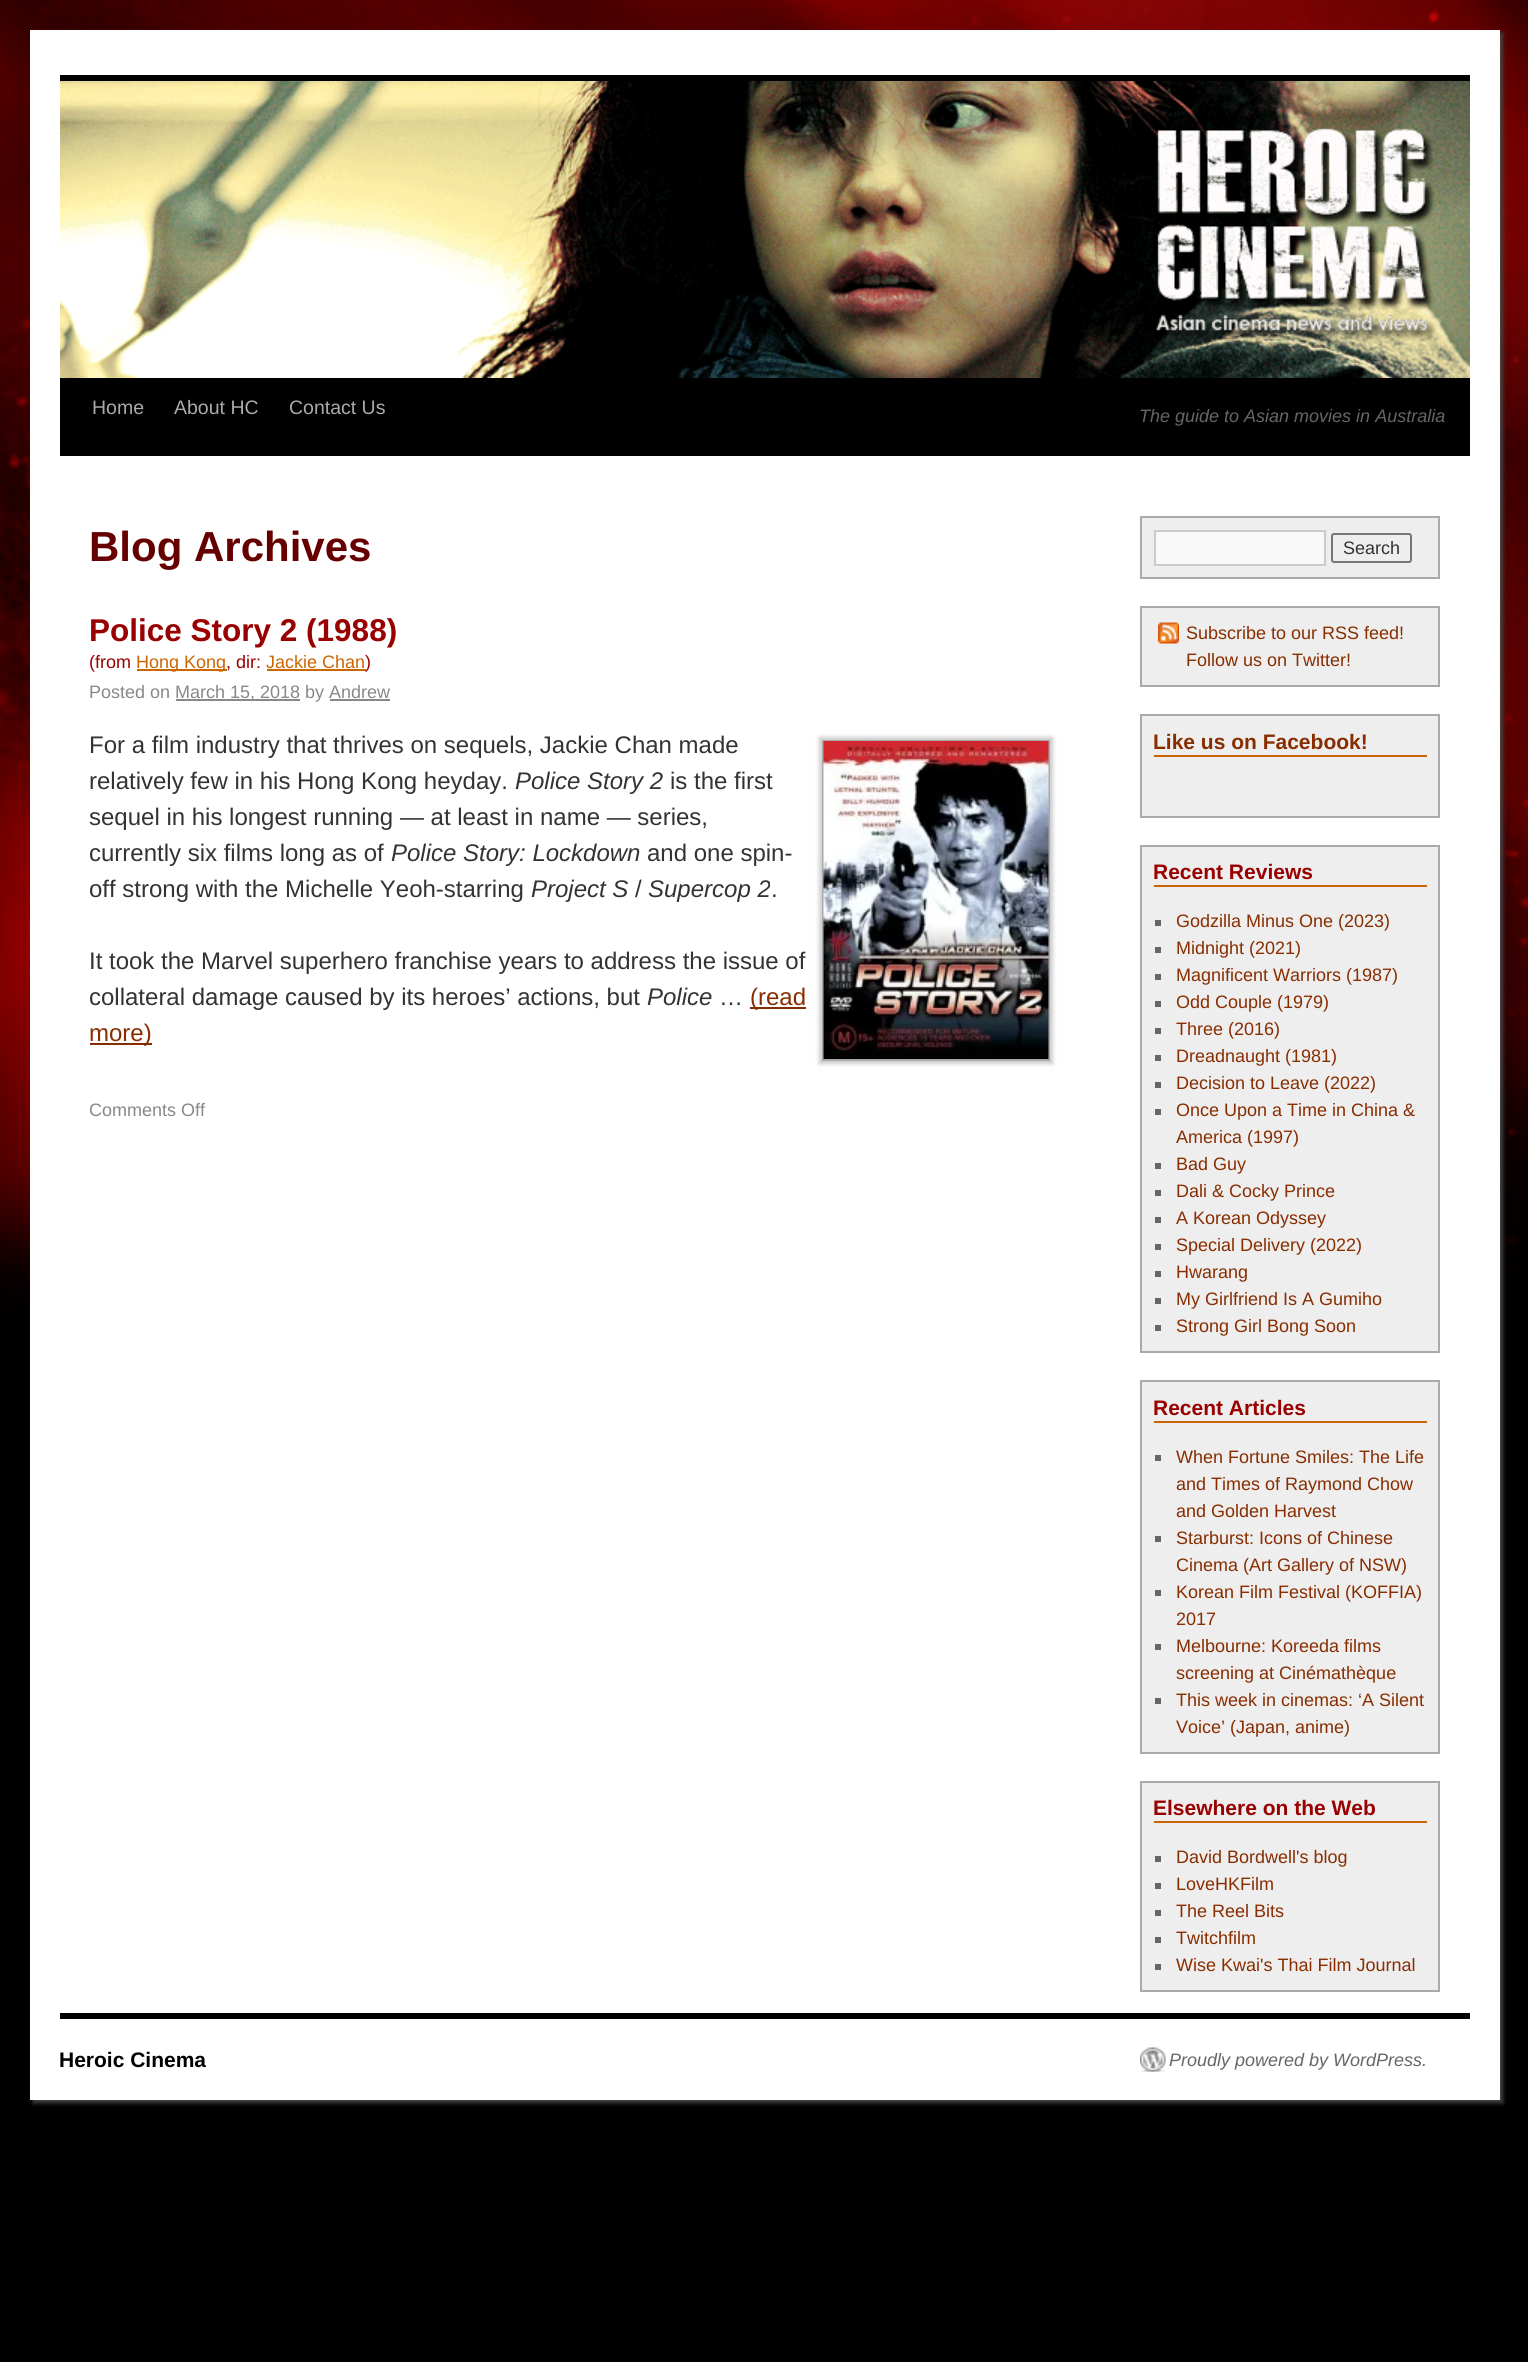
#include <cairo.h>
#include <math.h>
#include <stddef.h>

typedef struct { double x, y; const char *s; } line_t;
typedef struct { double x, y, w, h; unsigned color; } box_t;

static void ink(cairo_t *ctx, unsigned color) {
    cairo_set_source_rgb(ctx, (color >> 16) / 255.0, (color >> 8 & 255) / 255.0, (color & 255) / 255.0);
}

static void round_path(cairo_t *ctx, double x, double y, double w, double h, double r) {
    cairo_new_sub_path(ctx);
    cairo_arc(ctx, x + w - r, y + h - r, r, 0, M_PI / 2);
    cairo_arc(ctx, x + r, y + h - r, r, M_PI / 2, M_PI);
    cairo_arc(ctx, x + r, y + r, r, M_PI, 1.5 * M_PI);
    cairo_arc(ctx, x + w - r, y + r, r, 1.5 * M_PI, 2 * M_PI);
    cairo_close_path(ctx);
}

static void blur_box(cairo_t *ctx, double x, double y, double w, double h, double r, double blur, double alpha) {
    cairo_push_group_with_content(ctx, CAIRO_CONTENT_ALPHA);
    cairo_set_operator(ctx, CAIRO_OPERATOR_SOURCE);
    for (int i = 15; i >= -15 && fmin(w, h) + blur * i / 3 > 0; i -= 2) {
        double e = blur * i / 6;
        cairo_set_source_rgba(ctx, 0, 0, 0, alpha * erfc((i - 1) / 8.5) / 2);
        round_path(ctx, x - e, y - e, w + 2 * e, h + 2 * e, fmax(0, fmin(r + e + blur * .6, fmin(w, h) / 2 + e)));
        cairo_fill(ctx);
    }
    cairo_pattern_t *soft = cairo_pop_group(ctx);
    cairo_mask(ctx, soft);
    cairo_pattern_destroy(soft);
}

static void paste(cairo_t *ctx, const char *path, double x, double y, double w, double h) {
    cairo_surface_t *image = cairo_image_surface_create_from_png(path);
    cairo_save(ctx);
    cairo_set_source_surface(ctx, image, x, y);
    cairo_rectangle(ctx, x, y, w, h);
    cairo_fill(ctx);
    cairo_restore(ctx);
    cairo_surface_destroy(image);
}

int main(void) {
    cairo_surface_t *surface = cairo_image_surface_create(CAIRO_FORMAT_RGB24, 1528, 2362);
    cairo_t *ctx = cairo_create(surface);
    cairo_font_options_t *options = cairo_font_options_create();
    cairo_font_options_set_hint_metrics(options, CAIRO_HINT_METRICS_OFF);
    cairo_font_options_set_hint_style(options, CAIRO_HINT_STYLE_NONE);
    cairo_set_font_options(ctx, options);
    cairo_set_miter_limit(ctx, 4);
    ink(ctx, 0x000000);
    cairo_paint(ctx);
    paste(ctx, "media/1.png", 0, 0, 1528, 1316);
    ink(ctx, 0x444444);
    blur_box(ctx, 33, 33, 1470, 2070, 0, 2, 1);
    {
        static const box_t items[] = {
            {30, 30, 1470, 2070, 0xFFFFFF},
            {60, 75, 1410, 6, 0x000000},
            {60, 378, 1410, 78, 0x000000},
        };
        for (size_t i = 0; i < sizeof items / sizeof *items; i++) {
            ink(ctx, items[i].color);
            cairo_rectangle(ctx, items[i].x, items[i].y, items[i].w, items[i].h);
            cairo_fill(ctx);
        }
    }
    paste(ctx, "media/2.png", 60, 81, 1410, 297);
    cairo_select_font_face(ctx, "Liberation Sans", CAIRO_FONT_SLANT_NORMAL, CAIRO_FONT_WEIGHT_NORMAL);
    cairo_set_font_size(ctx, 19.5);
    ink(ctx, 0xAAAAAA);
    {
        static const line_t items[] = {
            {92, 414, "Home"},
            {174, 414, "About HC"},
            {289, 414, "Contact Us"},
        };
        for (size_t i = 0; i < sizeof items / sizeof *items; i++) {
            cairo_move_to(ctx, items[i].x, items[i].y);
            cairo_show_text(ctx, items[i].s);
        }
    }
    cairo_select_font_face(ctx, "Liberation Sans", CAIRO_FONT_SLANT_ITALIC, CAIRO_FONT_WEIGHT_NORMAL);
    cairo_set_font_size(ctx, 18);
    ink(ctx, 0x666666);
    cairo_move_to(ctx, 1139, 422);
    cairo_show_text(ctx, "The guide to Asian movies in Australia");
    cairo_select_font_face(ctx, "Liberation Sans", CAIRO_FONT_SLANT_NORMAL, CAIRO_FONT_WEIGHT_BOLD);
    cairo_set_font_size(ctx, 42);
    ink(ctx, 0x660000);
    cairo_move_to(ctx, 89, 561);
    cairo_show_text(ctx, "Blog Archives");
    cairo_set_font_size(ctx, 31.5);
    ink(ctx, 0x990000);
    cairo_move_to(ctx, 89, 641);
    cairo_show_text(ctx, "Police Story 2 (1988)");
    cairo_select_font_face(ctx, "Liberation Sans", CAIRO_FONT_SLANT_NORMAL, CAIRO_FONT_WEIGHT_NORMAL);
    cairo_set_font_size(ctx, 18);
    cairo_move_to(ctx, 89, 668);
    cairo_show_text(ctx, "(from");
    ink(ctx, 0xCC6600);
    cairo_rectangle(ctx, 137, 669, 90, 2);
    cairo_fill(ctx);
    cairo_move_to(ctx, 136, 668);
    cairo_show_text(ctx, "Hong Kong");
    ink(ctx, 0x990000);
    cairo_move_to(ctx, 226, 668);
    cairo_show_text(ctx, ", dir:");
    ink(ctx, 0xCC6600);
    cairo_move_to(ctx, 266, 668);
    cairo_show_text(ctx, "Jackie Chan");
    cairo_rectangle(ctx, 267, 669, 99, 2);
    cairo_fill(ctx);
    ink(ctx, 0x990000);
    cairo_move_to(ctx, 365, 668);
    cairo_show_text(ctx, ")");
    ink(ctx, 0x888888);
    cairo_move_to(ctx, 89, 698);
    cairo_show_text(ctx, "Posted on");
    cairo_rectangle(ctx, 176, 699, 124, 2);
    cairo_fill(ctx);
    cairo_move_to(ctx, 175, 698);
    cairo_show_text(ctx, "March 15, 2018 by Andrew");
    cairo_rectangle(ctx, 330, 699, 60, 2);
    cairo_fill(ctx);
    cairo_set_font_size(ctx, 24);
    ink(ctx, 0x333333);
    cairo_move_to(ctx, 89, 753);
    cairo_show_text(ctx, "For a film industry that thrives on sequels, Jackie Chan made");
    cairo_move_to(ctx, 89, 789);
    cairo_show_text(ctx, "relatively few in his Hong Kong heyday.");
    cairo_select_font_face(ctx, "Liberation Sans", CAIRO_FONT_SLANT_ITALIC, CAIRO_FONT_WEIGHT_NORMAL);
    cairo_move_to(ctx, 515, 789);
    cairo_show_text(ctx, "Police Story 2");
    cairo_select_font_face(ctx, "Liberation Sans", CAIRO_FONT_SLANT_NORMAL, CAIRO_FONT_WEIGHT_NORMAL);
    {
        static const line_t items[] = {
            {670, 789, "is the first"},
            {89, 825, "sequel in his longest running — at least in name — series,"},
            {89, 861, "currently six films long as of"},
        };
        for (size_t i = 0; i < sizeof items / sizeof *items; i++) {
            cairo_move_to(ctx, items[i].x, items[i].y);
            cairo_show_text(ctx, items[i].s);
        }
    }
    cairo_select_font_face(ctx, "Liberation Sans", CAIRO_FONT_SLANT_ITALIC, CAIRO_FONT_WEIGHT_NORMAL);
    cairo_move_to(ctx, 391, 861);
    cairo_show_text(ctx, "Police Story: Lockdown");
    cairo_select_font_face(ctx, "Liberation Sans", CAIRO_FONT_SLANT_NORMAL, CAIRO_FONT_WEIGHT_NORMAL);
    cairo_move_to(ctx, 647, 861);
    cairo_show_text(ctx, "and one spin-");
    cairo_move_to(ctx, 89, 897);
    cairo_show_text(ctx, "off strong with the Michelle Yeoh-starring");
    cairo_select_font_face(ctx, "Liberation Sans", CAIRO_FONT_SLANT_ITALIC, CAIRO_FONT_WEIGHT_NORMAL);
    cairo_move_to(ctx, 531, 897);
    cairo_show_text(ctx, "Project S");
    cairo_select_font_face(ctx, "Liberation Sans", CAIRO_FONT_SLANT_NORMAL, CAIRO_FONT_WEIGHT_NORMAL);
    cairo_move_to(ctx, 635, 897);
    cairo_show_text(ctx, "/");
    cairo_select_font_face(ctx, "Liberation Sans", CAIRO_FONT_SLANT_ITALIC, CAIRO_FONT_WEIGHT_NORMAL);
    cairo_move_to(ctx, 648, 897);
    cairo_show_text(ctx, "Supercop 2");
    cairo_select_font_face(ctx, "Liberation Sans", CAIRO_FONT_SLANT_NORMAL, CAIRO_FONT_WEIGHT_NORMAL);
    cairo_move_to(ctx, 771, 897);
    cairo_show_text(ctx, ".");
    ink(ctx, 0xCCCCCC);
    blur_box(ctx, 819, 737, 234, 327, 0, 2, 1);
    cairo_rectangle(ctx, 823, 741, 226, 319);
    ink(ctx, 0xAAAAAA);
    cairo_stroke(ctx);
    paste(ctx, "media/3.png", 823, 741, 226, 318);
    ink(ctx, 0x333333);
    cairo_move_to(ctx, 89, 969);
    cairo_show_text(ctx, "It took the Marvel superhero franchise years to address the issue of");
    cairo_move_to(ctx, 89, 1005);
    cairo_show_text(ctx, "collateral damage caused by its heroes’ actions, but");
    cairo_select_font_face(ctx, "Liberation Sans", CAIRO_FONT_SLANT_ITALIC, CAIRO_FONT_WEIGHT_NORMAL);
    cairo_move_to(ctx, 647, 1005);
    cairo_show_text(ctx, "Police");
    cairo_select_font_face(ctx, "Liberation Sans", CAIRO_FONT_SLANT_NORMAL, CAIRO_FONT_WEIGHT_NORMAL);
    cairo_move_to(ctx, 719, 1005);
    cairo_show_text(ctx, "…");
    ink(ctx, 0x882D00);
    cairo_rectangle(ctx, 750, 1007, 56, 2);
    cairo_fill(ctx);
    cairo_move_to(ctx, 750, 1005);
    cairo_show_text(ctx, "(read");
    cairo_rectangle(ctx, 90, 1043, 62, 2);
    cairo_fill(ctx);
    cairo_move_to(ctx, 89, 1041);
    cairo_show_text(ctx, "more)");
    cairo_set_font_size(ctx, 18);
    ink(ctx, 0x888888);
    cairo_move_to(ctx, 89, 1116);
    cairo_show_text(ctx, "Comments Off");
    ink(ctx, 0xEEEEEE);
    cairo_rectangle(ctx, 1141, 517, 298, 61);
    cairo_fill_preserve(ctx);
    ink(ctx, 0xAAAAAA);
    cairo_stroke(ctx);
    ink(ctx, 0xF9F9F9);
    cairo_rectangle(ctx, 1155, 531, 170, 34);
    cairo_fill_preserve(ctx);
    ink(ctx, 0xCCCCCC);
    cairo_stroke(ctx);
    round_path(ctx, 1332, 534, 79, 28, 2);
    ink(ctx, 0x767676);
    cairo_stroke(ctx);
    ink(ctx, 0x333333);
    cairo_move_to(ctx, 1343, 554);
    cairo_show_text(ctx, "Search");
    ink(ctx, 0xEEEEEE);
    cairo_rectangle(ctx, 1141, 607, 298, 79);
    cairo_fill_preserve(ctx);
    ink(ctx, 0xAAAAAA);
    cairo_stroke(ctx);
    paste(ctx, "media/4.png", 1158, 622, 21, 22);
    ink(ctx, 0x882D00);
    cairo_move_to(ctx, 1186, 639);
    cairo_show_text(ctx, "Subscribe to our RSS feed!");
    cairo_move_to(ctx, 1186, 666);
    cairo_show_text(ctx, "Follow us on Twitter!");
    ink(ctx, 0xEEEEEE);
    cairo_rectangle(ctx, 1141, 715, 298, 102);
    cairo_fill_preserve(ctx);
    ink(ctx, 0xAAAAAA);
    cairo_stroke(ctx);
    ink(ctx, 0xCC6600);
    cairo_rectangle(ctx, 1154, 755, 273, 2);
    cairo_fill(ctx);
    cairo_select_font_face(ctx, "Liberation Sans", CAIRO_FONT_SLANT_NORMAL, CAIRO_FONT_WEIGHT_BOLD);
    cairo_set_font_size(ctx, 21);
    ink(ctx, 0x882D00);
    cairo_move_to(ctx, 1153, 749);
    cairo_show_text(ctx, "Like us on Facebook!");
    ink(ctx, 0xEEEEEE);
    cairo_rectangle(ctx, 1141, 846, 298, 506);
    cairo_fill_preserve(ctx);
    ink(ctx, 0xAAAAAA);
    cairo_stroke(ctx);
    ink(ctx, 0xCC6600);
    cairo_rectangle(ctx, 1154, 885, 273, 2);
    cairo_fill(ctx);
    ink(ctx, 0x990000);
    cairo_move_to(ctx, 1153, 879);
    cairo_show_text(ctx, "Recent Reviews");
    ink(ctx, 0x666666);
    cairo_rectangle(ctx, 1155, 920, 6, 6);
    cairo_fill(ctx);
    cairo_select_font_face(ctx, "Liberation Sans", CAIRO_FONT_SLANT_NORMAL, CAIRO_FONT_WEIGHT_NORMAL);
    cairo_set_font_size(ctx, 18);
    ink(ctx, 0x882D00);
    cairo_move_to(ctx, 1176, 927);
    cairo_show_text(ctx, "Godzilla Minus One (2023)");
    ink(ctx, 0x666666);
    cairo_rectangle(ctx, 1155, 947, 6, 6);
    cairo_fill(ctx);
    ink(ctx, 0x882D00);
    cairo_move_to(ctx, 1176, 954);
    cairo_show_text(ctx, "Midnight (2021)");
    ink(ctx, 0x666666);
    cairo_rectangle(ctx, 1155, 974, 6, 6);
    cairo_fill(ctx);
    ink(ctx, 0x882D00);
    cairo_move_to(ctx, 1176, 981);
    cairo_show_text(ctx, "Magnificent Warriors (1987)");
    ink(ctx, 0x666666);
    cairo_rectangle(ctx, 1155, 1001, 6, 6);
    cairo_fill(ctx);
    ink(ctx, 0x882D00);
    cairo_move_to(ctx, 1176, 1008);
    cairo_show_text(ctx, "Odd Couple (1979)");
    ink(ctx, 0x666666);
    cairo_rectangle(ctx, 1155, 1028, 6, 6);
    cairo_fill(ctx);
    ink(ctx, 0x882D00);
    cairo_move_to(ctx, 1176, 1035);
    cairo_show_text(ctx, "Three (2016)");
    ink(ctx, 0x666666);
    cairo_rectangle(ctx, 1155, 1055, 6, 6);
    cairo_fill(ctx);
    ink(ctx, 0x882D00);
    cairo_move_to(ctx, 1176, 1062);
    cairo_show_text(ctx, "Dreadnaught (1981)");
    ink(ctx, 0x666666);
    cairo_rectangle(ctx, 1155, 1082, 6, 6);
    cairo_fill(ctx);
    ink(ctx, 0x882D00);
    cairo_move_to(ctx, 1176, 1089);
    cairo_show_text(ctx, "Decision to Leave (2022)");
    ink(ctx, 0x666666);
    cairo_rectangle(ctx, 1155, 1109, 6, 6);
    cairo_fill(ctx);
    ink(ctx, 0x882D00);
    cairo_move_to(ctx, 1176, 1116);
    cairo_show_text(ctx, "Once Upon a Time in China &");
    cairo_move_to(ctx, 1176, 1143);
    cairo_show_text(ctx, "America (1997)");
    ink(ctx, 0x666666);
    cairo_rectangle(ctx, 1155, 1163, 6, 6);
    cairo_fill(ctx);
    ink(ctx, 0x882D00);
    cairo_move_to(ctx, 1176, 1170);
    cairo_show_text(ctx, "Bad Guy");
    ink(ctx, 0x666666);
    cairo_rectangle(ctx, 1155, 1190, 6, 6);
    cairo_fill(ctx);
    ink(ctx, 0x882D00);
    cairo_move_to(ctx, 1176, 1197);
    cairo_show_text(ctx, "Dali & Cocky Prince");
    ink(ctx, 0x666666);
    cairo_rectangle(ctx, 1155, 1217, 6, 6);
    cairo_fill(ctx);
    ink(ctx, 0x882D00);
    cairo_move_to(ctx, 1176, 1224);
    cairo_show_text(ctx, "A Korean Odyssey");
    ink(ctx, 0x666666);
    cairo_rectangle(ctx, 1155, 1244, 6, 6);
    cairo_fill(ctx);
    ink(ctx, 0x882D00);
    cairo_move_to(ctx, 1176, 1251);
    cairo_show_text(ctx, "Special Delivery (2022)");
    ink(ctx, 0x666666);
    cairo_rectangle(ctx, 1155, 1271, 6, 6);
    cairo_fill(ctx);
    ink(ctx, 0x882D00);
    cairo_move_to(ctx, 1176, 1278);
    cairo_show_text(ctx, "Hwarang");
    ink(ctx, 0x666666);
    cairo_rectangle(ctx, 1155, 1298, 6, 6);
    cairo_fill(ctx);
    ink(ctx, 0x882D00);
    cairo_move_to(ctx, 1176, 1305);
    cairo_show_text(ctx, "My Girlfriend Is A Gumiho");
    ink(ctx, 0x666666);
    cairo_rectangle(ctx, 1155, 1325, 6, 6);
    cairo_fill(ctx);
    ink(ctx, 0x882D00);
    cairo_move_to(ctx, 1176, 1332);
    cairo_show_text(ctx, "Strong Girl Bong Soon");
    ink(ctx, 0xEEEEEE);
    cairo_rectangle(ctx, 1141, 1381, 298, 372);
    cairo_fill_preserve(ctx);
    ink(ctx, 0xAAAAAA);
    cairo_stroke(ctx);
    ink(ctx, 0xCC6600);
    cairo_rectangle(ctx, 1154, 1421, 273, 2);
    cairo_fill(ctx);
    cairo_select_font_face(ctx, "Liberation Sans", CAIRO_FONT_SLANT_NORMAL, CAIRO_FONT_WEIGHT_BOLD);
    cairo_set_font_size(ctx, 21);
    ink(ctx, 0x990000);
    cairo_move_to(ctx, 1153, 1415);
    cairo_show_text(ctx, "Recent Articles");
    ink(ctx, 0x666666);
    cairo_rectangle(ctx, 1155, 1455, 6, 6);
    cairo_fill(ctx);
    cairo_select_font_face(ctx, "Liberation Sans", CAIRO_FONT_SLANT_NORMAL, CAIRO_FONT_WEIGHT_NORMAL);
    cairo_set_font_size(ctx, 18);
    ink(ctx, 0x882D00);
    {
        static const line_t items[] = {
            {1176, 1463, "When Fortune Smiles: The Life"},
            {1176, 1490, "and Times of Raymond Chow"},
            {1176, 1517, "and Golden Harvest"},
        };
        for (size_t i = 0; i < sizeof items / sizeof *items; i++) {
            cairo_move_to(ctx, items[i].x, items[i].y);
            cairo_show_text(ctx, items[i].s);
        }
    }
    ink(ctx, 0x666666);
    cairo_rectangle(ctx, 1155, 1536, 6, 6);
    cairo_fill(ctx);
    ink(ctx, 0x882D00);
    cairo_move_to(ctx, 1176, 1544);
    cairo_show_text(ctx, "Starburst: Icons of Chinese");
    cairo_move_to(ctx, 1176, 1571);
    cairo_show_text(ctx, "Cinema (Art Gallery of NSW)");
    ink(ctx, 0x666666);
    cairo_rectangle(ctx, 1155, 1590, 6, 6);
    cairo_fill(ctx);
    ink(ctx, 0x882D00);
    cairo_move_to(ctx, 1176, 1598);
    cairo_show_text(ctx, "Korean Film Festival (KOFFIA)");
    cairo_move_to(ctx, 1176, 1625);
    cairo_show_text(ctx, "2017");
    ink(ctx, 0x666666);
    cairo_rectangle(ctx, 1155, 1644, 6, 6);
    cairo_fill(ctx);
    ink(ctx, 0x882D00);
    cairo_move_to(ctx, 1176, 1652);
    cairo_show_text(ctx, "Melbourne: Koreeda films");
    cairo_move_to(ctx, 1176, 1679);
    cairo_show_text(ctx, "screening at Cinémathèque");
    ink(ctx, 0x666666);
    cairo_rectangle(ctx, 1155, 1698, 6, 6);
    cairo_fill(ctx);
    ink(ctx, 0x882D00);
    cairo_move_to(ctx, 1176, 1706);
    cairo_show_text(ctx, "This week in cinemas: ‘A Silent");
    cairo_move_to(ctx, 1176, 1733);
    cairo_show_text(ctx, "Voice’ (Japan, anime)");
    ink(ctx, 0xEEEEEE);
    cairo_rectangle(ctx, 1141, 1782, 298, 209);
    cairo_fill_preserve(ctx);
    ink(ctx, 0xAAAAAA);
    cairo_stroke(ctx);
    ink(ctx, 0xCC6600);
    cairo_rectangle(ctx, 1154, 1821, 273, 2);
    cairo_fill(ctx);
    cairo_select_font_face(ctx, "Liberation Sans", CAIRO_FONT_SLANT_NORMAL, CAIRO_FONT_WEIGHT_BOLD);
    cairo_set_font_size(ctx, 21);
    ink(ctx, 0x990000);
    cairo_move_to(ctx, 1153, 1815);
    cairo_show_text(ctx, "Elsewhere on the Web");
    ink(ctx, 0x666666);
    cairo_rectangle(ctx, 1155, 1856, 6, 6);
    cairo_fill(ctx);
    cairo_select_font_face(ctx, "Liberation Sans", CAIRO_FONT_SLANT_NORMAL, CAIRO_FONT_WEIGHT_NORMAL);
    cairo_set_font_size(ctx, 18);
    ink(ctx, 0x882D00);
    cairo_move_to(ctx, 1176, 1863);
    cairo_show_text(ctx, "David Bordwell's blog");
    ink(ctx, 0x666666);
    cairo_rectangle(ctx, 1155, 1883, 6, 6);
    cairo_fill(ctx);
    ink(ctx, 0x882D00);
    cairo_move_to(ctx, 1176, 1890);
    cairo_show_text(ctx, "LoveHKFilm");
    ink(ctx, 0x666666);
    cairo_rectangle(ctx, 1155, 1910, 6, 6);
    cairo_fill(ctx);
    ink(ctx, 0x882D00);
    cairo_move_to(ctx, 1176, 1917);
    cairo_show_text(ctx, "The Reel Bits");
    ink(ctx, 0x666666);
    cairo_rectangle(ctx, 1155, 1937, 6, 6);
    cairo_fill(ctx);
    ink(ctx, 0x882D00);
    cairo_move_to(ctx, 1176, 1944);
    cairo_show_text(ctx, "Twitchfilm");
    ink(ctx, 0x666666);
    cairo_rectangle(ctx, 1155, 1964, 6, 6);
    cairo_fill(ctx);
    ink(ctx, 0x882D00);
    cairo_move_to(ctx, 1176, 1971);
    cairo_show_text(ctx, "Wise Kwai's Thai Film Journal");
    ink(ctx, 0x000000);
    cairo_rectangle(ctx, 60, 2013, 1410, 6);
    cairo_fill(ctx);
    cairo_select_font_face(ctx, "Liberation Sans", CAIRO_FONT_SLANT_NORMAL, CAIRO_FONT_WEIGHT_BOLD);
    cairo_set_font_size(ctx, 21);
    cairo_move_to(ctx, 59, 2067);
    cairo_show_text(ctx, "Heroic Cinema");
    paste(ctx, "media/5.png", 1140, 2047, 26, 25);
    cairo_select_font_face(ctx, "Liberation Sans", CAIRO_FONT_SLANT_ITALIC, CAIRO_FONT_WEIGHT_NORMAL);
    cairo_set_font_size(ctx, 18);
    ink(ctx, 0x666666);
    cairo_move_to(ctx, 1169, 2066);
    cairo_show_text(ctx, "Proudly powered by WordPress.");
    cairo_surface_write_to_png(surface, "image.png");
    cairo_font_options_destroy(options);
    cairo_destroy(ctx);
    cairo_surface_destroy(surface);
    return 0;
}
